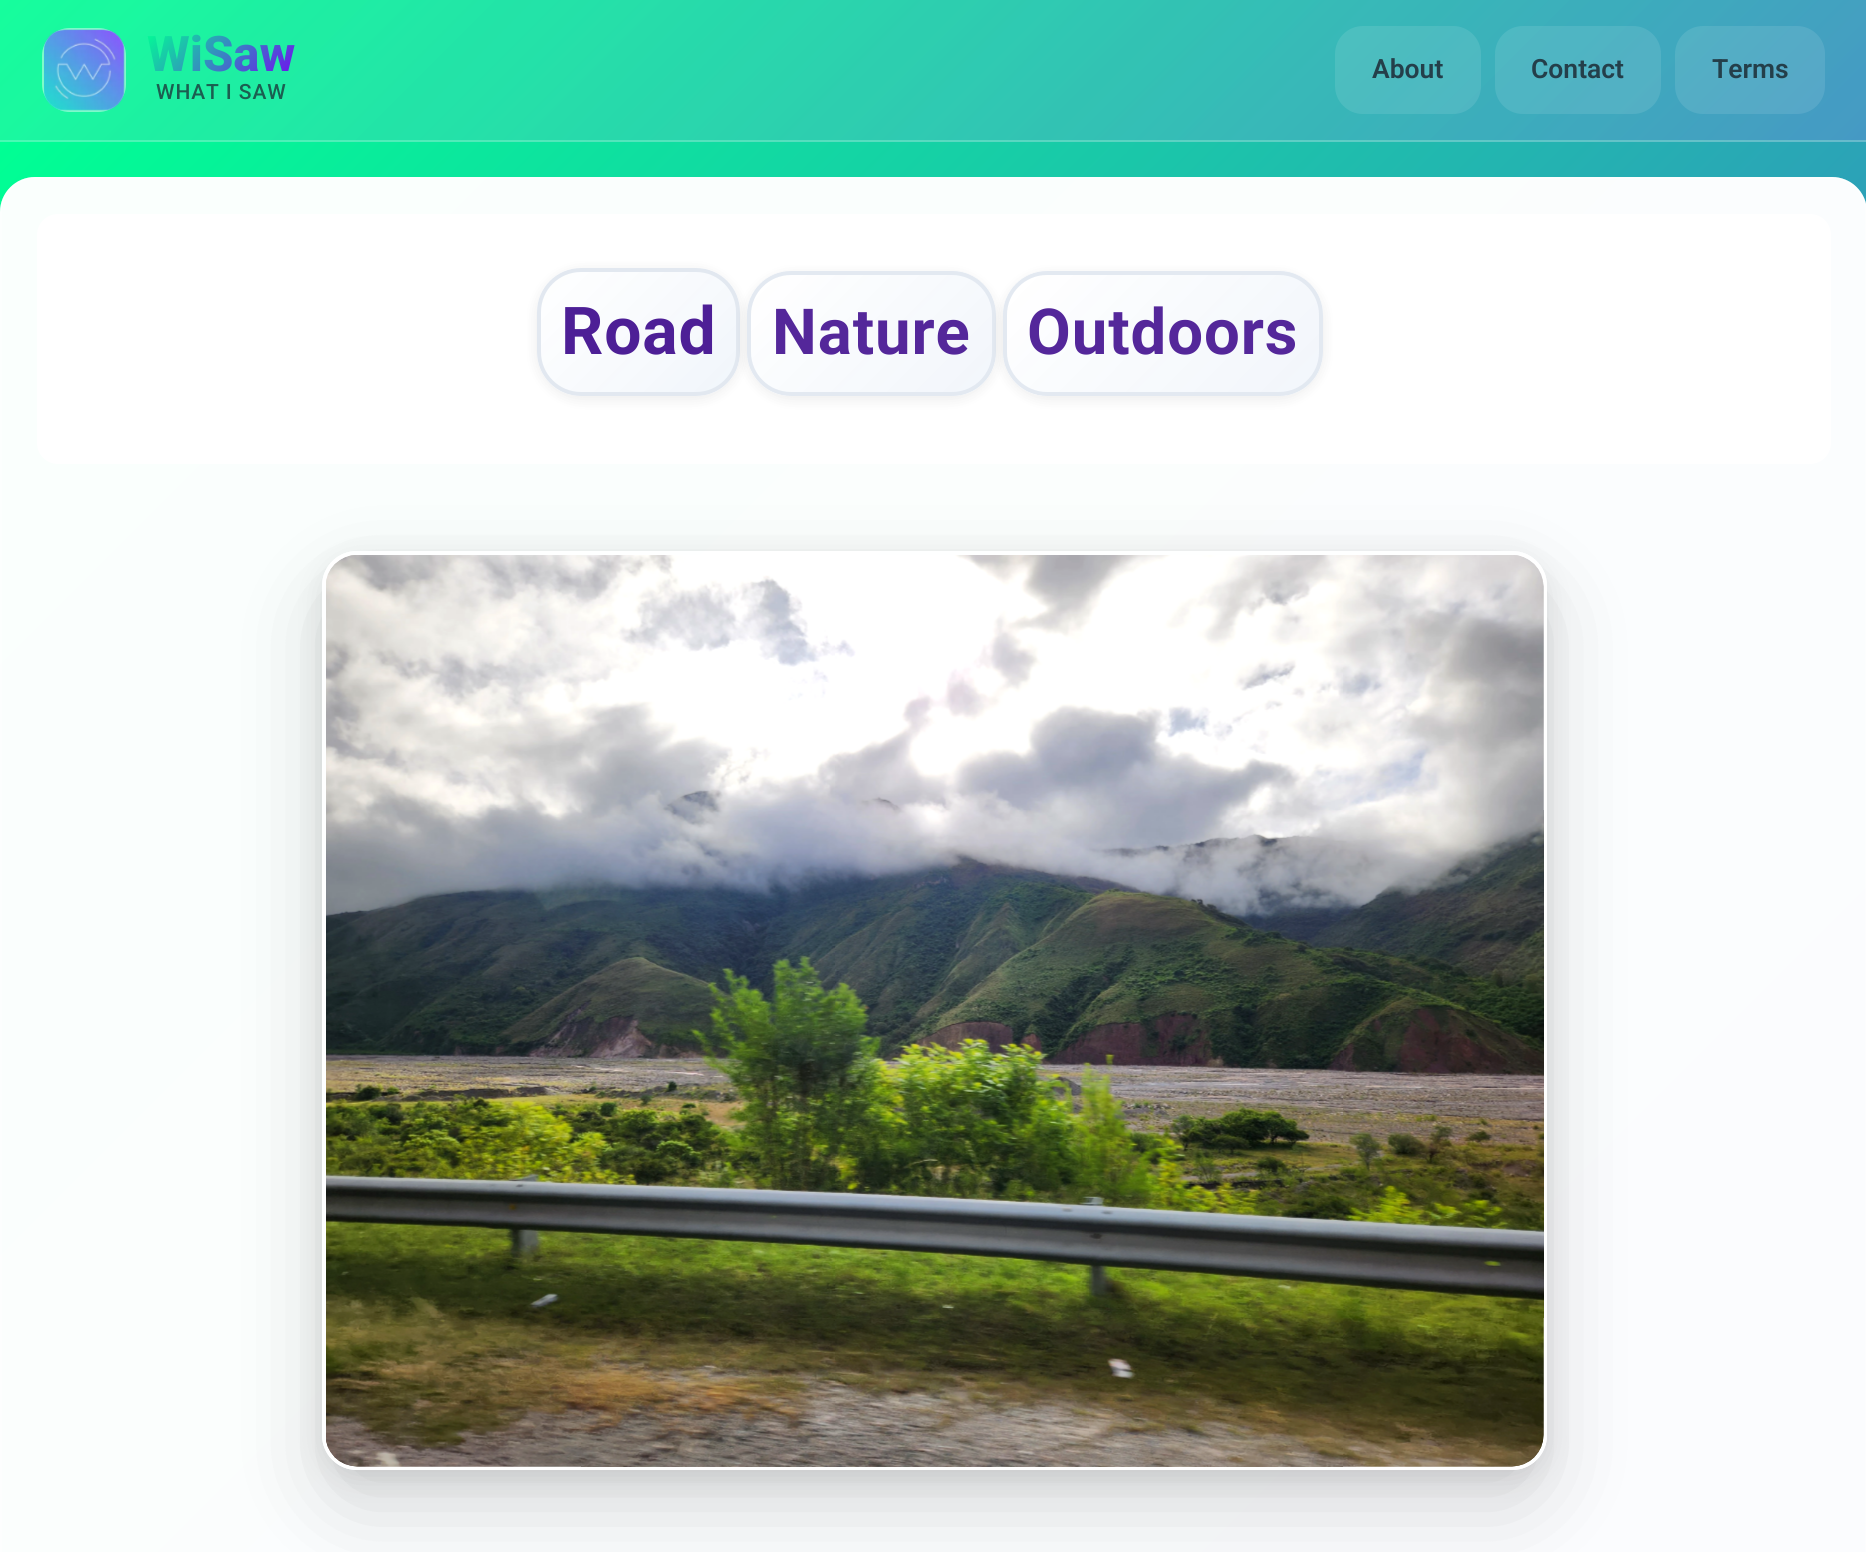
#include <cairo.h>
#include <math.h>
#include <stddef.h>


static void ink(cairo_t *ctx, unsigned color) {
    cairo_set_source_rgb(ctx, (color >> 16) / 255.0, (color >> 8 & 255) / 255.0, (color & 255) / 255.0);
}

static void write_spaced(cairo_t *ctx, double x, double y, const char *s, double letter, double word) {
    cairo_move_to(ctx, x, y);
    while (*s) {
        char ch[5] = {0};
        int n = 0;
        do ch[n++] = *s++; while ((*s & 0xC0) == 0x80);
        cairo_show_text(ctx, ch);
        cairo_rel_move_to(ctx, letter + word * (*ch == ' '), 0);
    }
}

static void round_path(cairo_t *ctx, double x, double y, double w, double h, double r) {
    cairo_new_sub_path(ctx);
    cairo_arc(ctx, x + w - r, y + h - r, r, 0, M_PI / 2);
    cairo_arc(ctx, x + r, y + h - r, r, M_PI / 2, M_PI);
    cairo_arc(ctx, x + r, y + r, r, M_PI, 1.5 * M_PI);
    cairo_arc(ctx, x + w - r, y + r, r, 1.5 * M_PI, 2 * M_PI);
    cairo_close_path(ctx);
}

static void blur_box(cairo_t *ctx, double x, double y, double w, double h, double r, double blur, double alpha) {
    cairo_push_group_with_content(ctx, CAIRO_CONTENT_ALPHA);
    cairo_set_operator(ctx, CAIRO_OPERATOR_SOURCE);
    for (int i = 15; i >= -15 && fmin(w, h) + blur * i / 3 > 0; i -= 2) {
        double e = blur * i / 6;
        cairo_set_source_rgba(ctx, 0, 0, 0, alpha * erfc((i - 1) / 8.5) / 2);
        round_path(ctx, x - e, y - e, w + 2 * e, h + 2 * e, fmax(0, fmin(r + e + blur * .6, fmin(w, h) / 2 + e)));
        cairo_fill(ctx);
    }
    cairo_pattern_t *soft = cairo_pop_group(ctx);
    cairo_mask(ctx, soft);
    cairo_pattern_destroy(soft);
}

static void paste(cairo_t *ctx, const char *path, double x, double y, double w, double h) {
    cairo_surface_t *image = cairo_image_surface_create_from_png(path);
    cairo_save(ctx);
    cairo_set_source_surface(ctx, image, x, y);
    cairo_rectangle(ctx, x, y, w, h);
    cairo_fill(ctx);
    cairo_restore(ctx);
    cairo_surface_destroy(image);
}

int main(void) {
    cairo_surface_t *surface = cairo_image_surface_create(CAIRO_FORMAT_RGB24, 1866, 1552);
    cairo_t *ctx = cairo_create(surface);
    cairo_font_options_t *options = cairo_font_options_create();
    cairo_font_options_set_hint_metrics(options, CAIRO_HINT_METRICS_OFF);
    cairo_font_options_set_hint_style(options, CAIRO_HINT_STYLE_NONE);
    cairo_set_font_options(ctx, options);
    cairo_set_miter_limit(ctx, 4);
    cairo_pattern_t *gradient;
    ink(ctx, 0xFFFFFF);
    cairo_paint(ctx);
    gradient = cairo_pattern_create_linear(-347, 347, 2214, 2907);
    cairo_pattern_add_color_stop_rgba(gradient, 0, 0, 1, 0.58, 1);
    cairo_pattern_add_color_stop_rgba(gradient, 1, 0.447, 0.047, 0.941, 1);
    cairo_set_source(ctx, gradient);
    cairo_pattern_destroy(gradient);
    cairo_rectangle(ctx, 0, 0, 1866, 142);
    cairo_fill(ctx);
    cairo_set_source_rgba(ctx, 1, 1, 1, 0.1);
    cairo_rectangle(ctx, 0, 0, 1866, 142);
    cairo_fill(ctx);
    cairo_set_source_rgba(ctx, 1, 1, 1, 0.2);
    cairo_rectangle(ctx, 0, 140, 1866, 2);
    cairo_fill(ctx);
    gradient = cairo_pattern_create_linear(432, -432, 1435, 572);
    cairo_pattern_add_color_stop_rgba(gradient, 0, 0, 1, 0.58, 0.1);
    cairo_pattern_add_color_stop_rgba(gradient, 1, 0.447, 0.047, 0.941, 0.1);
    cairo_set_source(ctx, gradient);
    cairo_pattern_destroy(gradient);
    cairo_rectangle(ctx, 0, 0, 1866, 140);
    cairo_fill(ctx);
    cairo_set_source_rgba(ctx, 1, 1, 1, 0.2);
    round_path(ctx, 42, 28, 84, 84, 28);
    cairo_fill(ctx);
    round_path(ctx, 43, 29, 82, 82, 27);
    cairo_set_source_rgba(ctx, 1, 1, 1, 0.3);
    cairo_stroke(ctx);
    paste(ctx, "media/1.png", 44, 29, 81, 82);
    cairo_select_font_face(ctx, "Roboto ExtraBold", CAIRO_FONT_SLANT_NORMAL, CAIRO_FONT_WEIGHT_NORMAL);
    cairo_set_font_size(ctx, 49);
    gradient = cairo_pattern_create_linear(172, 5.6, 270, 104);
    cairo_pattern_add_color_stop_rgba(gradient, 0, 0, 1, 0.58, 1);
    cairo_pattern_add_color_stop_rgba(gradient, 1, 0.447, 0.047, 0.941, 1);
    cairo_set_source(ctx, gradient);
    cairo_pattern_destroy(gradient);
    cairo_move_to(ctx, 147, 71);
    cairo_show_text(ctx, "WiSaw");
    cairo_select_font_face(ctx, "Roboto Medium", CAIRO_FONT_SLANT_NORMAL, CAIRO_FONT_WEIGHT_NORMAL);
    cairo_set_font_size(ctx, 21);
    ink(ctx, 0x1B5E50);
    write_spaced(ctx, 156, 99, "WHAT I SAW", 0.9, 0);
    cairo_set_source_rgba(ctx, 1, 1, 1, 0.1);
    round_path(ctx, 1335, 26, 146, 88, 28);
    cairo_fill(ctx);
    cairo_select_font_face(ctx, "Roboto SemiBold", CAIRO_FONT_SLANT_NORMAL, CAIRO_FONT_WEIGHT_NORMAL);
    cairo_set_font_size(ctx, 26.5);
    ink(ctx, 0x243F4A);
    cairo_move_to(ctx, 1372, 78);
    cairo_show_text(ctx, "About");
    cairo_set_source_rgba(ctx, 1, 1, 1, 0.1);
    round_path(ctx, 1495, 26, 166, 88, 28);
    cairo_fill(ctx);
    ink(ctx, 0x243F4A);
    cairo_move_to(ctx, 1531, 78);
    cairo_show_text(ctx, "Contact");
    cairo_set_source_rgba(ctx, 1, 1, 1, 0.1);
    round_path(ctx, 1675, 26, 150, 88, 28);
    cairo_fill(ctx);
    ink(ctx, 0x243F4A);
    cairo_move_to(ctx, 1712, 78);
    cairo_show_text(ctx, "Terms");
    gradient = cairo_pattern_create_linear(-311, 453, 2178, 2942);
    cairo_pattern_add_color_stop_rgba(gradient, 0, 0, 1, 0.58, 1);
    cairo_pattern_add_color_stop_rgba(gradient, 1, 0.447, 0.047, 0.941, 1);
    cairo_set_source(ctx, gradient);
    cairo_pattern_destroy(gradient);
    cairo_rectangle(ctx, 0, 142, 1866, 1410);
    cairo_fill(ctx);
    cairo_set_source_rgba(ctx, 1, 1, 1, 0.98);
    round_path(ctx, 0, 177, 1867, 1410, 35);
    cairo_fill(ctx);
    round_path(ctx, 1, 178, 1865, 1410, 34);
    cairo_set_source_rgba(ctx, 1, 1, 1, 0.4);
    cairo_stroke(ctx);
    ink(ctx, 0xFFFFFF);
    round_path(ctx, 37, 214, 1794, 250, 21);
    cairo_fill(ctx);
    cairo_save(ctx);
    cairo_set_fill_rule(ctx, CAIRO_FILL_RULE_EVEN_ODD);
    cairo_new_path(ctx);
    cairo_move_to(ctx, 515, 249);
    cairo_line_to(ctx, 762, 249);
    cairo_line_to(ctx, 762, 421);
    cairo_line_to(ctx, 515, 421);
    cairo_close_path(ctx);
    cairo_move_to(ctx, 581, 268);
    cairo_line_to(ctx, 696, 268);
    cairo_curve_to(ctx, 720.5, 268, 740, 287.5, 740, 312);
    cairo_line_to(ctx, 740, 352);
    cairo_curve_to(ctx, 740, 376.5, 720.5, 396, 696, 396);
    cairo_line_to(ctx, 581, 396);
    cairo_curve_to(ctx, 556.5, 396, 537, 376.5, 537, 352);
    cairo_line_to(ctx, 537, 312);
    cairo_curve_to(ctx, 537, 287.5, 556.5, 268, 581, 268);
    cairo_close_path(ctx);
    cairo_clip(ctx);
    ink(ctx, 0x020202);
    blur_box(ctx, 537, 271, 203, 128, 44, 7, 0.08);
    cairo_restore(ctx);
    cairo_save(ctx);
    round_path(ctx, 537, 268, 203, 128, 44);
    cairo_clip(ctx);
    gradient = cairo_pattern_create_linear(560, 252, 718, 411);
    cairo_pattern_add_color_stop_rgba(gradient, 0, 1, 1, 1, 0.9);
    cairo_pattern_add_color_stop_rgba(gradient, 1, 0.941, 0.961, 0.984, 0.95);
    cairo_set_source(ctx, gradient);
    cairo_pattern_destroy(gradient);
    cairo_rectangle(ctx, 541, 271, 196, 121);
    cairo_fill(ctx);
    cairo_restore(ctx);
    round_path(ctx, 539, 270, 199, 124, 42);
    ink(ctx, 0xE2E8F0);
    cairo_set_line_width(ctx, 4);
    cairo_stroke(ctx);
    cairo_select_font_face(ctx, "Roboto", CAIRO_FONT_SLANT_NORMAL, CAIRO_FONT_WEIGHT_BOLD);
    cairo_set_font_size(ctx, 66);
    ink(ctx, 0x4D1F96);
    write_spaced(ctx, 561, 354, "Road", 0.9, 0);
    cairo_save(ctx);
    cairo_set_fill_rule(ctx, CAIRO_FILL_RULE_EVEN_ODD);
    cairo_new_path(ctx);
    cairo_move_to(ctx, 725, 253);
    cairo_line_to(ctx, 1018, 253);
    cairo_line_to(ctx, 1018, 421);
    cairo_line_to(ctx, 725, 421);
    cairo_close_path(ctx);
    cairo_move_to(ctx, 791, 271);
    cairo_line_to(ctx, 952, 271);
    cairo_curve_to(ctx, 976.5, 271, 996, 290.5, 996, 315);
    cairo_line_to(ctx, 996, 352);
    cairo_curve_to(ctx, 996, 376.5, 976.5, 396, 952, 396);
    cairo_line_to(ctx, 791, 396);
    cairo_curve_to(ctx, 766.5, 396, 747, 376.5, 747, 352);
    cairo_line_to(ctx, 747, 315);
    cairo_curve_to(ctx, 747, 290.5, 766.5, 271, 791, 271);
    cairo_close_path(ctx);
    cairo_clip(ctx);
    ink(ctx, 0x000000);
    blur_box(ctx, 747, 275, 249, 124, 44, 7, 0.08);
    cairo_restore(ctx);
    cairo_save(ctx);
    round_path(ctx, 747, 271, 249, 125, 44);
    cairo_clip(ctx);
    gradient = cairo_pattern_create_linear(782, 126, 961, 306);
    cairo_pattern_add_color_stop_rgba(gradient, 0, 1, 1, 1, 0.9);
    cairo_pattern_add_color_stop_rgba(gradient, 1, 0.945, 0.961, 0.984, 0.95);
    cairo_set_source(ctx, gradient);
    cairo_pattern_destroy(gradient);
    cairo_rectangle(ctx, 773, 271, 197, 4);
    cairo_fill(ctx);
    gradient = cairo_pattern_create_linear(540, 244, 720, 423);
    cairo_pattern_add_color_stop_rgba(gradient, 0, 1, 1, 1, 0.9);
    cairo_pattern_add_color_stop_rgba(gradient, 1, 0.945, 0.961, 0.984, 0.95);
    cairo_set_source(ctx, gradient);
    cairo_pattern_destroy(gradient);
    cairo_rectangle(ctx, 747, 297, 4, 73);
    cairo_fill(ctx);
    gradient = cairo_pattern_create_linear(782, 244, 961, 423);
    cairo_pattern_add_color_stop_rgba(gradient, 0, 1, 1, 1, 0.9);
    cairo_pattern_add_color_stop_rgba(gradient, 1, 0.945, 0.961, 0.984, 0.95);
    cairo_set_source(ctx, gradient);
    cairo_pattern_destroy(gradient);
    cairo_rectangle(ctx, 751, 275, 241, 117);
    cairo_fill(ctx);
    gradient = cairo_pattern_create_linear(1023, 244, 1203, 423);
    cairo_pattern_add_color_stop_rgba(gradient, 0, 1, 1, 1, 0.9);
    cairo_pattern_add_color_stop_rgba(gradient, 1, 0.945, 0.961, 0.984, 0.95);
    cairo_set_source(ctx, gradient);
    cairo_pattern_destroy(gradient);
    cairo_rectangle(ctx, 992, 297, 4, 73);
    cairo_fill(ctx);
    gradient = cairo_pattern_create_linear(782, 361, 961, 540);
    cairo_pattern_add_color_stop_rgba(gradient, 0, 1, 1, 1, 0.9);
    cairo_pattern_add_color_stop_rgba(gradient, 1, 0.945, 0.961, 0.984, 0.95);
    cairo_set_source(ctx, gradient);
    cairo_pattern_destroy(gradient);
    cairo_rectangle(ctx, 773, 392, 197, 4);
    cairo_fill(ctx);
    cairo_restore(ctx);
    round_path(ctx, 749, 273, 245, 121, 42);
    cairo_set_source_rgba(ctx, 0.886, 0.91, 0.941, 0.96);
    cairo_stroke(ctx);
    cairo_select_font_face(ctx, "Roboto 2", CAIRO_FONT_SLANT_NORMAL, CAIRO_FONT_WEIGHT_BOLD);
    cairo_set_font_size(ctx, 63.5);
    ink(ctx, 0x54279A);
    write_spaced(ctx, 772, 354, "Nature", 0.9, 0);
    cairo_save(ctx);
    cairo_set_fill_rule(ctx, CAIRO_FILL_RULE_EVEN_ODD);
    cairo_new_path(ctx);
    cairo_move_to(ctx, 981, 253);
    cairo_line_to(ctx, 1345, 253);
    cairo_line_to(ctx, 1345, 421);
    cairo_line_to(ctx, 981, 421);
    cairo_close_path(ctx);
    cairo_move_to(ctx, 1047, 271);
    cairo_line_to(ctx, 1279, 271);
    cairo_curve_to(ctx, 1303.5, 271, 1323, 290.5, 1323, 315);
    cairo_line_to(ctx, 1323, 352);
    cairo_curve_to(ctx, 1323, 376.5, 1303.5, 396, 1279, 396);
    cairo_line_to(ctx, 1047, 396);
    cairo_curve_to(ctx, 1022.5, 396, 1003, 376.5, 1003, 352);
    cairo_line_to(ctx, 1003, 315);
    cairo_curve_to(ctx, 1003, 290.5, 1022.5, 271, 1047, 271);
    cairo_close_path(ctx);
    cairo_clip(ctx);
    ink(ctx, 0x000000);
    blur_box(ctx, 1003, 275, 320, 124, 44, 7, 0.08);
    cairo_restore(ctx);
    cairo_save(ctx);
    round_path(ctx, 1003, 271, 320, 125, 44);
    cairo_clip(ctx);
    gradient = cairo_pattern_create_linear(1055, 109, 1271, 324);
    cairo_pattern_add_color_stop_rgba(gradient, 0, 1, 1, 1, 0.9);
    cairo_pattern_add_color_stop_rgba(gradient, 1, 0.945, 0.961, 0.984, 0.95);
    cairo_set_source(ctx, gradient);
    cairo_pattern_destroy(gradient);
    cairo_rectangle(ctx, 1029, 271, 268, 4);
    cairo_fill(ctx);
    gradient = cairo_pattern_create_linear(742, 226, 957, 441);
    cairo_pattern_add_color_stop_rgba(gradient, 0, 1, 1, 1, 0.9);
    cairo_pattern_add_color_stop_rgba(gradient, 1, 0.945, 0.961, 0.984, 0.95);
    cairo_set_source(ctx, gradient);
    cairo_pattern_destroy(gradient);
    cairo_rectangle(ctx, 1003, 299, 3, 69);
    cairo_fill(ctx);
    gradient = cairo_pattern_create_linear(1055, 226, 1271, 441);
    cairo_pattern_add_color_stop_rgba(gradient, 0, 1, 1, 1, 0.9);
    cairo_pattern_add_color_stop_rgba(gradient, 1, 0.945, 0.961, 0.984, 0.95);
    cairo_set_source(ctx, gradient);
    cairo_pattern_destroy(gradient);
    cairo_rectangle(ctx, 1006, 275, 314, 117);
    cairo_fill(ctx);
    gradient = cairo_pattern_create_linear(1055, 343, 1271, 558);
    cairo_pattern_add_color_stop_rgba(gradient, 0, 1, 1, 1, 0.9);
    cairo_pattern_add_color_stop_rgba(gradient, 1, 0.945, 0.961, 0.984, 0.95);
    cairo_set_source(ctx, gradient);
    cairo_pattern_destroy(gradient);
    cairo_rectangle(ctx, 1029, 392, 268, 4);
    cairo_fill(ctx);
    cairo_restore(ctx);
    round_path(ctx, 1005, 273, 316, 121, 42);
    cairo_set_source_rgba(ctx, 0.886, 0.91, 0.941, 0.96);
    cairo_stroke(ctx);
    ink(ctx, 0x54279A);
    write_spaced(ctx, 1027, 354, "Outdoors", 0.9, 0);
    cairo_save(ctx);
    cairo_set_fill_rule(ctx, CAIRO_FILL_RULE_EVEN_ODD);
    cairo_new_path(ctx);
    cairo_move_to(ctx, 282, 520);
    cairo_line_to(ctx, 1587, 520);
    cairo_line_to(ctx, 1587, 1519);
    cairo_line_to(ctx, 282, 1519);
    cairo_close_path(ctx);
    cairo_move_to(ctx, 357, 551);
    cairo_line_to(ctx, 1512, 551);
    cairo_curve_to(ctx, 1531.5, 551, 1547, 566.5, 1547, 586);
    cairo_line_to(ctx, 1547, 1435);
    cairo_curve_to(ctx, 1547, 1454.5, 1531.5, 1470, 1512, 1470);
    cairo_line_to(ctx, 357, 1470);
    cairo_curve_to(ctx, 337.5, 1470, 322, 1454.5, 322, 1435);
    cairo_line_to(ctx, 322, 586);
    cairo_curve_to(ctx, 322, 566.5, 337.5, 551, 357, 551);
    cairo_close_path(ctx);
    cairo_clip(ctx);
    ink(ctx, 0x000000);
    blur_box(ctx, 322, 560, 1225, 919, 35, 13, 0.1);
    cairo_restore(ctx);
    cairo_save(ctx);
    cairo_set_fill_rule(ctx, CAIRO_FILL_RULE_EVEN_ODD);
    cairo_new_path(ctx);
    cairo_move_to(ctx, 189, 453);
    cairo_line_to(ctx, 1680, 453);
    cairo_line_to(ctx, 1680, 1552);
    cairo_line_to(ctx, 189, 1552);
    cairo_close_path(ctx);
    cairo_move_to(ctx, 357, 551);
    cairo_line_to(ctx, 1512, 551);
    cairo_curve_to(ctx, 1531.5, 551, 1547, 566.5, 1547, 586);
    cairo_line_to(ctx, 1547, 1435);
    cairo_curve_to(ctx, 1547, 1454.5, 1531.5, 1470, 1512, 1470);
    cairo_line_to(ctx, 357, 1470);
    cairo_curve_to(ctx, 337.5, 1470, 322, 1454.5, 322, 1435);
    cairo_line_to(ctx, 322, 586);
    cairo_curve_to(ctx, 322, 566.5, 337.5, 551, 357, 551);
    cairo_close_path(ctx);
    cairo_clip(ctx);
    ink(ctx, 0x000000);
    blur_box(ctx, 322, 586, 1225, 919, 35, 44, 0.15);
    cairo_restore(ctx);
    cairo_save(ctx);
    round_path(ctx, 322, 551, 1225, 919, 35);
    cairo_clip(ctx);
    gradient = cairo_pattern_create_linear(520, -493, 1349, 691);
    cairo_pattern_add_color_stop_rgba(gradient, 0, 1, 1, 1, 0.95);
    cairo_pattern_add_color_stop_rgba(gradient, 1, 1, 1, 1, 0.85);
    cairo_set_source(ctx, gradient);
    cairo_pattern_destroy(gradient);
    cairo_rectangle(ctx, 341, 551, 1187, 4);
    cairo_fill(ctx);
    gradient = cairo_pattern_create_linear(-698, 419, 131, 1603);
    cairo_pattern_add_color_stop_rgba(gradient, 0, 1, 1, 1, 0.95);
    cairo_pattern_add_color_stop_rgba(gradient, 1, 1, 1, 1, 0.85);
    cairo_set_source(ctx, gradient);
    cairo_pattern_destroy(gradient);
    cairo_rectangle(ctx, 322, 570, 4, 881);
    cairo_fill(ctx);
    gradient = cairo_pattern_create_linear(520, 419, 1349, 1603);
    cairo_pattern_add_color_stop_rgba(gradient, 0, 1, 1, 1, 0.95);
    cairo_pattern_add_color_stop_rgba(gradient, 1, 1, 1, 1, 0.85);
    cairo_set_source(ctx, gradient);
    cairo_pattern_destroy(gradient);
    cairo_rectangle(ctx, 326, 555, 1218, 912);
    cairo_fill(ctx);
    gradient = cairo_pattern_create_linear(1738, 419, 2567, 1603);
    cairo_pattern_add_color_stop_rgba(gradient, 0, 1, 1, 1, 0.95);
    cairo_pattern_add_color_stop_rgba(gradient, 1, 1, 1, 1, 0.85);
    cairo_set_source(ctx, gradient);
    cairo_pattern_destroy(gradient);
    cairo_rectangle(ctx, 1544, 572, 3, 877);
    cairo_fill(ctx);
    gradient = cairo_pattern_create_linear(520, 1330, 1349, 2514);
    cairo_pattern_add_color_stop_rgba(gradient, 0, 1, 1, 1, 0.95);
    cairo_pattern_add_color_stop_rgba(gradient, 1, 1, 1, 1, 0.85);
    cairo_set_source(ctx, gradient);
    cairo_pattern_destroy(gradient);
    cairo_rectangle(ctx, 343, 1467, 1183, 3);
    cairo_fill(ctx);
    cairo_restore(ctx);
    paste(ctx, "media/2.png", 326, 555, 1218, 912);
    paste(ctx, "media/3.png", 326, 555, 1218, 912);
    cairo_surface_write_to_png(surface, "image.png");
    cairo_font_options_destroy(options);
    cairo_destroy(ctx);
    cairo_surface_destroy(surface);
    return 0;
}
